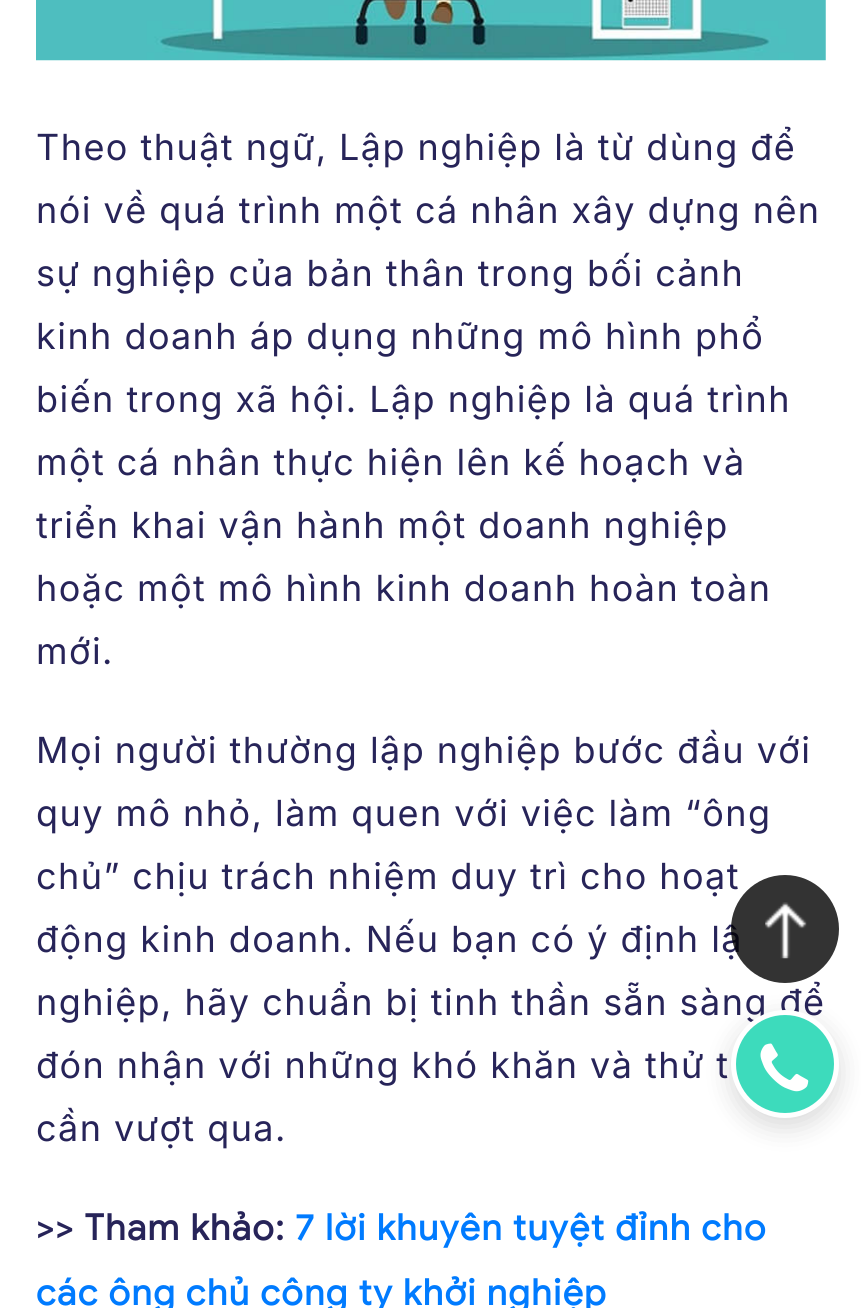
#include <cairo.h>
#include <math.h>
#include <stddef.h>

typedef struct { double x, y; const char *s; } line_t;

static void ink(cairo_t *ctx, unsigned color) {
    cairo_set_source_rgb(ctx, (color >> 16) / 255.0, (color >> 8 & 255) / 255.0, (color & 255) / 255.0);
}

static void write_spaced(cairo_t *ctx, double x, double y, const char *s, double letter, double word) {
    cairo_move_to(ctx, x, y);
    while (*s) {
        char ch[5] = {0};
        int n = 0;
        do ch[n++] = *s++; while ((*s & 0xC0) == 0x80);
        cairo_show_text(ctx, ch);
        cairo_rel_move_to(ctx, letter + word * (*ch == ' '), 0);
    }
}

static void round_path(cairo_t *ctx, double x, double y, double w, double h, double r) {
    cairo_new_sub_path(ctx);
    cairo_arc(ctx, x + w - r, y + h - r, r, 0, M_PI / 2);
    cairo_arc(ctx, x + r, y + h - r, r, M_PI / 2, M_PI);
    cairo_arc(ctx, x + r, y + r, r, M_PI, 1.5 * M_PI);
    cairo_arc(ctx, x + w - r, y + r, r, 1.5 * M_PI, 2 * M_PI);
    cairo_close_path(ctx);
}

static void blur_box(cairo_t *ctx, double x, double y, double w, double h, double r, double blur, double alpha) {
    cairo_push_group_with_content(ctx, CAIRO_CONTENT_ALPHA);
    cairo_set_operator(ctx, CAIRO_OPERATOR_SOURCE);
    for (int i = 15; i >= -15 && fmin(w, h) + blur * i / 3 > 0; i -= 2) {
        double e = blur * i / 6;
        cairo_set_source_rgba(ctx, 0, 0, 0, alpha * erfc((i - 1) / 8.5) / 2);
        round_path(ctx, x - e, y - e, w + 2 * e, h + 2 * e, fmax(0, fmin(r + e + blur * .6, fmin(w, h) / 2 + e)));
        cairo_fill(ctx);
    }
    cairo_pattern_t *soft = cairo_pop_group(ctx);
    cairo_mask(ctx, soft);
    cairo_pattern_destroy(soft);
}

static void paste(cairo_t *ctx, const char *path, double x, double y, double w, double h) {
    cairo_surface_t *image = cairo_image_surface_create_from_png(path);
    cairo_save(ctx);
    cairo_set_source_surface(ctx, image, x, y);
    cairo_rectangle(ctx, x, y, w, h);
    cairo_fill(ctx);
    cairo_restore(ctx);
    cairo_surface_destroy(image);
}

int main(void) {
    cairo_surface_t *surface = cairo_image_surface_create(CAIRO_FORMAT_RGB24, 861, 1308);
    cairo_t *ctx = cairo_create(surface);
    cairo_font_options_t *options = cairo_font_options_create();
    cairo_font_options_set_hint_metrics(options, CAIRO_HINT_METRICS_OFF);
    cairo_font_options_set_hint_style(options, CAIRO_HINT_STYLE_NONE);
    cairo_set_font_options(ctx, options);
    cairo_set_miter_limit(ctx, 4);
    ink(ctx, 0xFFFFFF);
    cairo_paint(ctx);
    paste(ctx, "media/1.png", 36, 0, 790, 61);
    cairo_select_font_face(ctx, "Inter", CAIRO_FONT_SLANT_NORMAL, CAIRO_FONT_WEIGHT_NORMAL);
    cairo_set_font_size(ctx, 36);
    ink(ctx, 0x272459);
    {
        static const line_t items[] = {
            {36, 160, "Theo thuật ngữ, Lập nghiệp là từ dùng để"},
            {36, 223, "nói về quá trình một cá nhân xây dựng nên"},
            {36, 286, "sự nghiệp của bản thân trong bối cảnh"},
            {36, 349, "kinh doanh áp dụng những mô hình phổ"},
            {36, 412, "biến trong xã hội. Lập nghiệp là quá trình"},
            {36, 475, "một cá nhân thực hiện lên kế hoạch và"},
            {36, 538, "triển khai vận hành một doanh nghiệp"},
            {36, 601, "hoặc một mô hình kinh doanh hoàn toàn"},
            {36, 664, "mới."},
            {36, 763, "Mọi người thường lập nghiệp bước đầu với"},
            {36, 826, "quy mô nhỏ, làm quen với việc làm “ông"},
            {36, 889, "chủ” chịu trách nhiệm duy trì cho hoạt"},
            {36, 952, "động kinh doanh. Nếu bạn có ý định lậ"},
            {36, 1015, "nghiệp, hãy chuẩn bị tinh thần sẵn sàng để"},
            {36, 1078, "đón nhận với những khó khăn và thử t"},
            {36, 1141, "cần vượt qua."},
        };
        for (size_t i = 0; i < sizeof items / sizeof *items; i++) {
            write_spaced(ctx, items[i].x, items[i].y, items[i].s, 1.45, 0);
        }
    }
    cairo_select_font_face(ctx, "Google Sans", CAIRO_FONT_SLANT_NORMAL, CAIRO_FONT_WEIGHT_BOLD);
    write_spaced(ctx, 36, 1240, ">> Tham khảo:", 1.45, 0);
    ink(ctx, 0x007BFF);
    write_spaced(ctx, 295, 1240, "7 lời khuyên tuyệt đỉnh cho", 1.45, 0);
    write_spaced(ctx, 36, 1305, "các ông chủ công ty khởi nghiệp", 1.45, 0);
    cairo_set_source_rgba(ctx, 0, 0, 0, 0.8);
    cairo_new_path(ctx);
    cairo_arc(ctx, 785, 929, 54, 0, 2 * M_PI);
    cairo_fill(ctx);
    paste(ctx, "media/2.png", 765, 902, 42, 57);
    ink(ctx, 0x000000);
    blur_box(ctx, 731, 1019, 108, 108, 54, 13.5, 0.15);
    ink(ctx, 0x3DDBBC);
    cairo_arc(ctx, 785, 1064, 51.5, 0, 2 * M_PI);
    cairo_fill_preserve(ctx);
    ink(ctx, 0xFFFFFF);
    cairo_set_line_width(ctx, 5);
    cairo_stroke(ctx);
    paste(ctx, "media/3.png", 760, 1043, 49, 49);
    cairo_surface_write_to_png(surface, "image.png");
    cairo_font_options_destroy(options);
    cairo_destroy(ctx);
    cairo_surface_destroy(surface);
    return 0;
}
